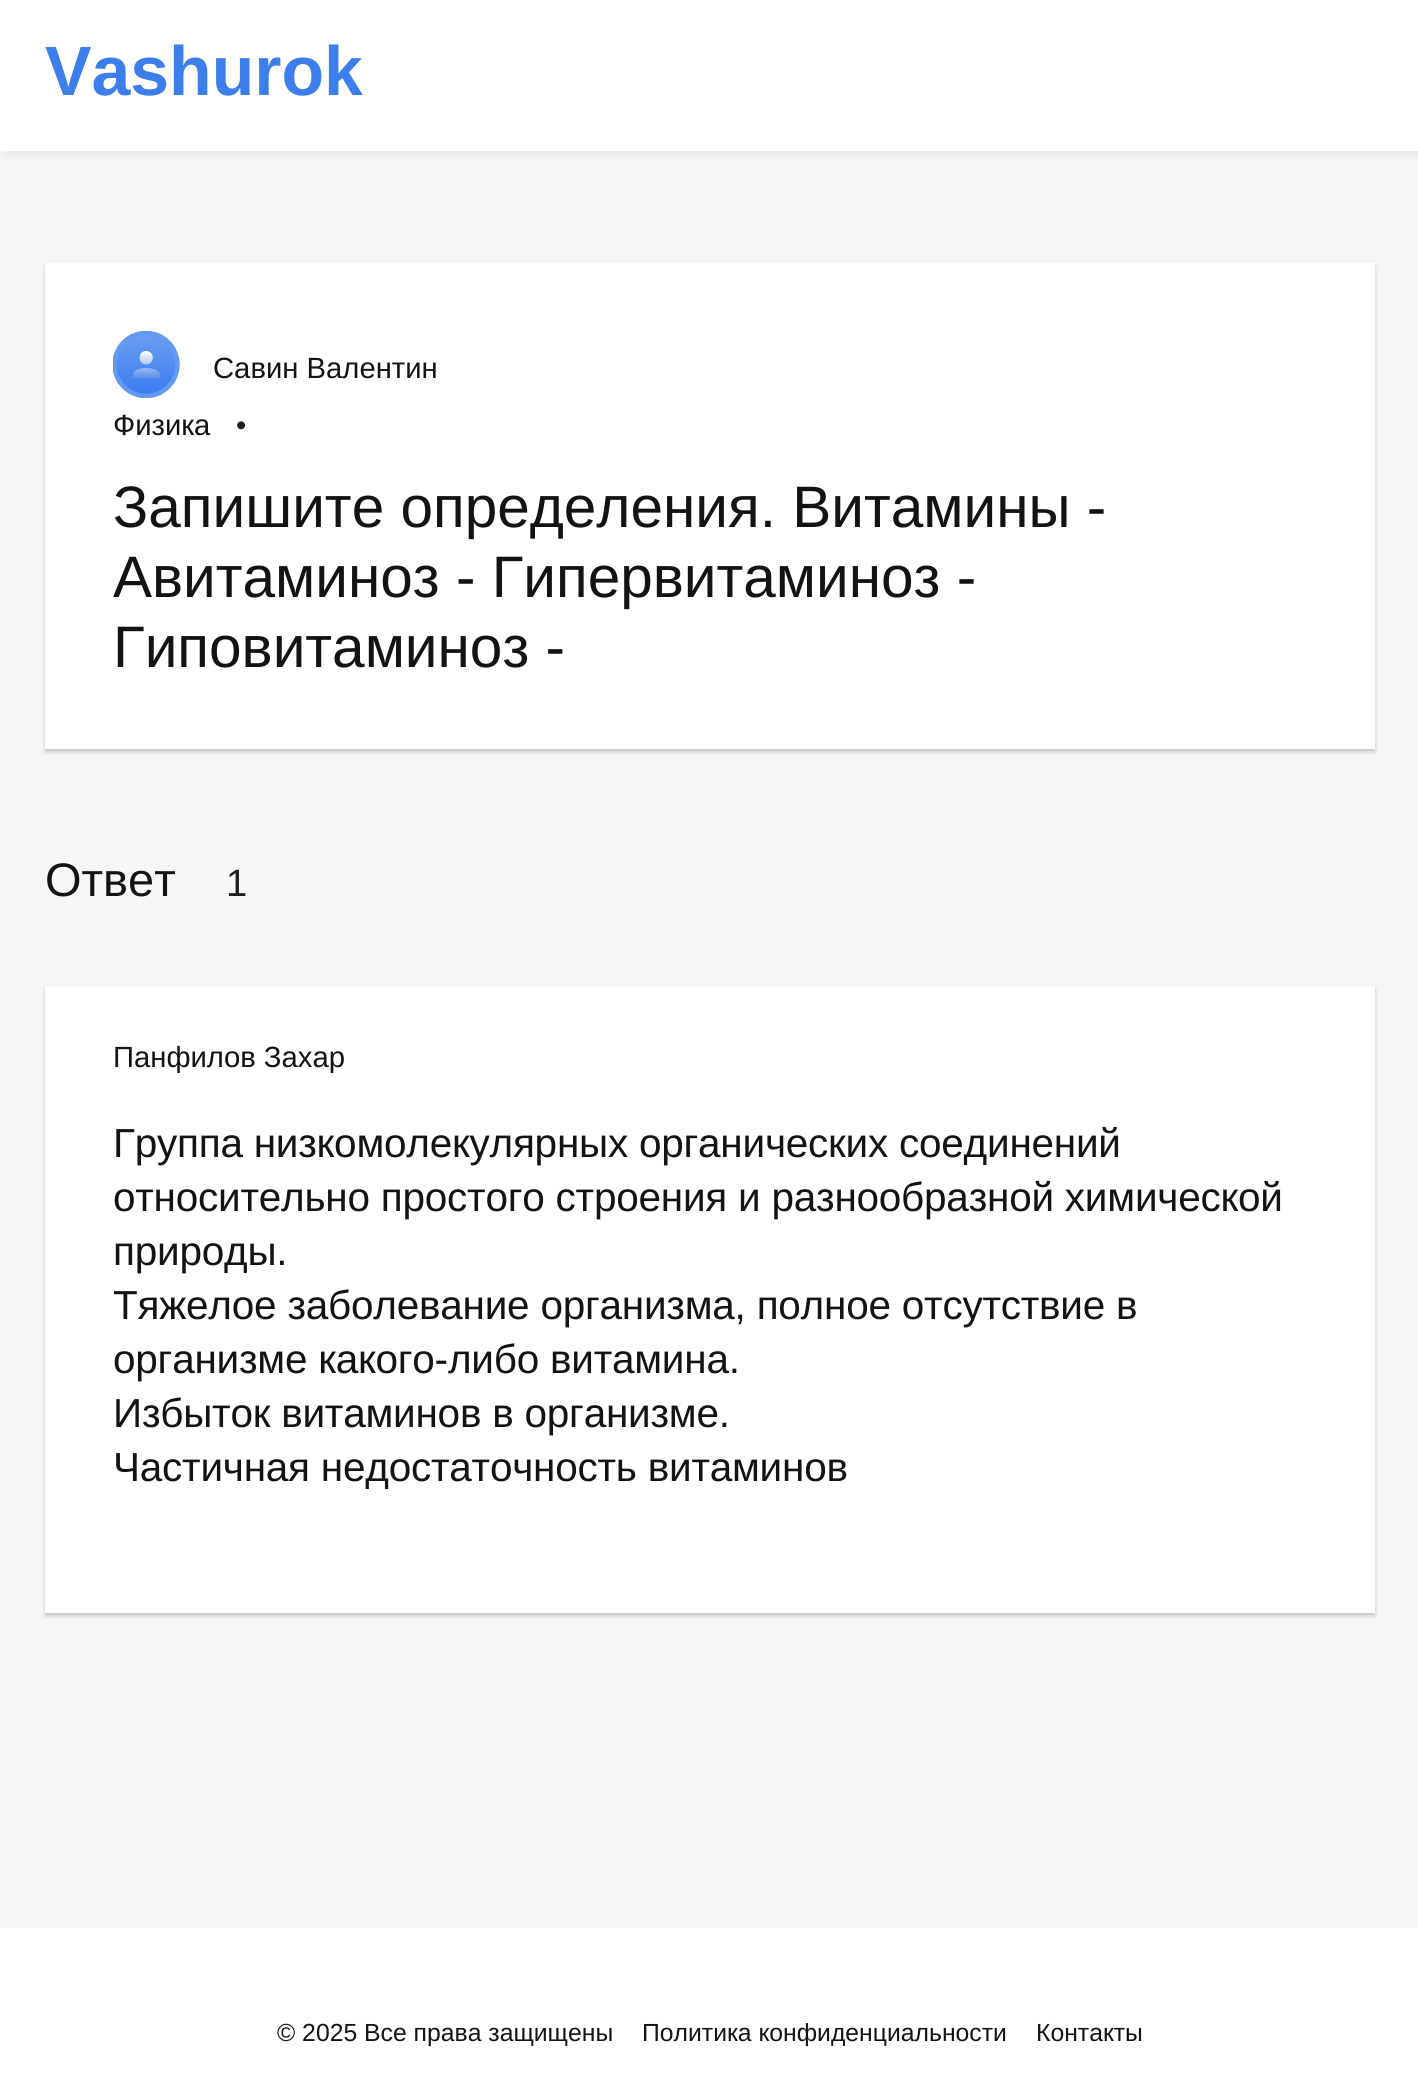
#include <cairo.h>
#include <math.h>
#include <stddef.h>

typedef struct { double x, y; const char *s; } line_t;

static void ink(cairo_t *ctx, unsigned color) {
    cairo_set_source_rgb(ctx, (color >> 16) / 255.0, (color >> 8 & 255) / 255.0, (color & 255) / 255.0);
}

static void write_spaced(cairo_t *ctx, double x, double y, const char *s, double letter, double word) {
    cairo_move_to(ctx, x, y);
    while (*s) {
        char ch[5] = {0};
        int n = 0;
        do ch[n++] = *s++; while ((*s & 0xC0) == 0x80);
        cairo_show_text(ctx, ch);
        cairo_rel_move_to(ctx, letter + word * (*ch == ' '), 0);
    }
}

static void round_path(cairo_t *ctx, double x, double y, double w, double h, double r) {
    cairo_new_sub_path(ctx);
    cairo_arc(ctx, x + w - r, y + h - r, r, 0, M_PI / 2);
    cairo_arc(ctx, x + r, y + h - r, r, M_PI / 2, M_PI);
    cairo_arc(ctx, x + r, y + r, r, M_PI, 1.5 * M_PI);
    cairo_arc(ctx, x + w - r, y + r, r, 1.5 * M_PI, 2 * M_PI);
    cairo_close_path(ctx);
}

static void blur_box(cairo_t *ctx, double x, double y, double w, double h, double r, double blur, double alpha) {
    cairo_push_group_with_content(ctx, CAIRO_CONTENT_ALPHA);
    cairo_set_operator(ctx, CAIRO_OPERATOR_SOURCE);
    for (int i = 15; i >= -15 && fmin(w, h) + blur * i / 3 > 0; i -= 2) {
        double e = blur * i / 6;
        cairo_set_source_rgba(ctx, 0, 0, 0, alpha * erfc((i - 1) / 8.5) / 2);
        round_path(ctx, x - e, y - e, w + 2 * e, h + 2 * e, fmax(0, fmin(r + e + blur * .6, fmin(w, h) / 2 + e)));
        cairo_fill(ctx);
    }
    cairo_pattern_t *soft = cairo_pop_group(ctx);
    cairo_mask(ctx, soft);
    cairo_pattern_destroy(soft);
}

int main(void) {
    cairo_surface_t *surface = cairo_image_surface_create(CAIRO_FORMAT_RGB24, 1418, 2086);
    cairo_t *ctx = cairo_create(surface);
    cairo_font_options_t *options = cairo_font_options_create();
    cairo_font_options_set_hint_metrics(options, CAIRO_HINT_METRICS_OFF);
    cairo_font_options_set_hint_style(options, CAIRO_HINT_STYLE_NONE);
    cairo_set_font_options(ctx, options);
    cairo_set_miter_limit(ctx, 4);
    cairo_pattern_t *gradient;
    ink(ctx, 0xF7F7F7);
    cairo_paint(ctx);
    ink(ctx, 0x4E5A67);
    blur_box(ctx, 5, -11, 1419, 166, 0, 4.5, 0.1);
    ink(ctx, 0xFFFFFF);
    cairo_rectangle(ctx, 0, 0, 1418, 151);
    cairo_fill(ctx);
    cairo_select_font_face(ctx, "Liberation Sans", CAIRO_FONT_SLANT_NORMAL, CAIRO_FONT_WEIGHT_BOLD);
    cairo_set_font_size(ctx, 69.75);
    ink(ctx, 0x3C7EEB);
    cairo_move_to(ctx, 45, 95);
    cairo_show_text(ctx, "Vashurok");
    ink(ctx, 0x000000);
    blur_box(ctx, 45, 266, 1330, 486, 0, 2, 0.2);
    ink(ctx, 0xFFFFFF);
    cairo_rectangle(ctx, 45, 263, 1330, 486);
    cairo_fill(ctx);
    gradient = cairo_pattern_create_linear(146, 331, 146, 398);
    cairo_pattern_add_color_stop_rgba(gradient, 0, 0.424, 0.62, 0.949, 1);
    cairo_pattern_add_color_stop_rgba(gradient, 1, 0.216, 0.482, 0.929, 1);
    cairo_set_source(ctx, gradient);
    cairo_pattern_destroy(gradient);
    cairo_arc(ctx, 146, 364.5, 31.5, 0, 2 * M_PI);
    cairo_fill(ctx);
    cairo_save(ctx);
    cairo_rectangle(ctx, 113, 331, 67, 67);
    cairo_clip(ctx);
    cairo_arc(ctx, 146, 364.5, 31.5, 0, 2 * M_PI);
    ink(ctx, 0x6499F2);
    cairo_set_line_width(ctx, 4.5);
    cairo_stroke(ctx);
    cairo_restore(ctx);
    gradient = cairo_pattern_create_linear(146, 351, 146, 378);
    cairo_pattern_add_color_stop_rgba(gradient, 0, 1, 1, 1, 1);
    cairo_pattern_add_color_stop_rgba(gradient, 1, 0.353, 0.565, 0.922, 1);
    cairo_set_source(ctx, gradient);
    cairo_pattern_destroy(gradient);
    cairo_new_path(ctx);
    cairo_move_to(ctx, 146, 351);
    cairo_curve_to(ctx, 155, 351, 155, 364.5, 146, 364.5);
    cairo_curve_to(ctx, 137.5, 364.5, 137.5, 351, 146, 351);
    cairo_close_path(ctx);
    cairo_move_to(ctx, 146, 368);
    cairo_curve_to(ctx, 153.5, 368, 160, 371, 160, 374.5);
    cairo_line_to(ctx, 160, 378);
    cairo_line_to(ctx, 133, 378);
    cairo_line_to(ctx, 133, 374.5);
    cairo_curve_to(ctx, 133, 371, 139, 368, 146, 368);
    cairo_close_path(ctx);
    cairo_fill(ctx);
    cairo_select_font_face(ctx, "Liberation Sans", CAIRO_FONT_SLANT_NORMAL, CAIRO_FONT_WEIGHT_NORMAL);
    cairo_set_font_size(ctx, 29.25);
    ink(ctx, 0x131313);
    cairo_move_to(ctx, 213, 378);
    cairo_show_text(ctx, "Савин Валентин");
    cairo_move_to(ctx, 113, 435);
    cairo_show_text(ctx, "Физика");
    ink(ctx, 0x1F1F1F);
    cairo_move_to(ctx, 236, 435);
    cairo_show_text(ctx, "•");
    cairo_set_font_size(ctx, 58.5);
    ink(ctx, 0x131313);
    {
        static const line_t items[] = {
            {113, 527, "Запишите определения. Витамины -"},
            {113, 597, "Авитаминоз - Гипервитаминоз -"},
            {113, 667, "Гиповитаминоз -"},
        };
        for (size_t i = 0; i < sizeof items / sizeof *items; i++) {
            cairo_move_to(ctx, items[i].x, items[i].y);
            cairo_show_text(ctx, items[i].s);
        }
    }
    cairo_set_font_size(ctx, 47);
    cairo_move_to(ctx, 45, 896);
    cairo_show_text(ctx, "Ответ");
    cairo_set_font_size(ctx, 38);
    ink(ctx, 0x1F1F1F);
    cairo_move_to(ctx, 226, 896);
    cairo_show_text(ctx, "1");
    ink(ctx, 0x000000);
    blur_box(ctx, 45, 988, 1330, 628, 0, 2, 0.2);
    ink(ctx, 0xFFFFFF);
    cairo_rectangle(ctx, 45, 986, 1330, 627);
    cairo_fill(ctx);
    cairo_set_font_size(ctx, 29.25);
    ink(ctx, 0x131313);
    cairo_move_to(ctx, 113, 1067);
    cairo_show_text(ctx, "Панфилов Захар");
    cairo_set_font_size(ctx, 40.5);
    {
        static const line_t items[] = {
            {113, 1157, "Группа низкомолекулярных органических соединений"},
            {113, 1211, "относительно простого строения и разнообразной химической"},
            {113, 1265, "природы."},
            {113, 1319, "Тяжелое заболевание организма, полное отсутствие в"},
            {113, 1373, "организме какого-либо витамина."},
            {113, 1427, "Избыток витаминов в организме."},
            {113, 1481, "Частичная недостаточность витаминов"},
        };
        for (size_t i = 0; i < sizeof items / sizeof *items; i++) {
            write_spaced(ctx, items[i].x, items[i].y, items[i].s, -0.23, 0);
        }
    }
    ink(ctx, 0xFFFFFF);
    cairo_rectangle(ctx, 0, 1928, 1418, 158);
    cairo_fill(ctx);
    cairo_set_font_size(ctx, 24.75);
    ink(ctx, 0x131313);
    {
        static const line_t items[] = {
            {277, 2041, "© 2025 Все права защищены"},
            {642, 2041, "Политика конфиденциальности"},
            {1036, 2041, "Контакты"},
        };
        for (size_t i = 0; i < sizeof items / sizeof *items; i++) {
            cairo_move_to(ctx, items[i].x, items[i].y);
            cairo_show_text(ctx, items[i].s);
        }
    }
    cairo_surface_write_to_png(surface, "image.png");
    cairo_font_options_destroy(options);
    cairo_destroy(ctx);
    cairo_surface_destroy(surface);
    return 0;
}
